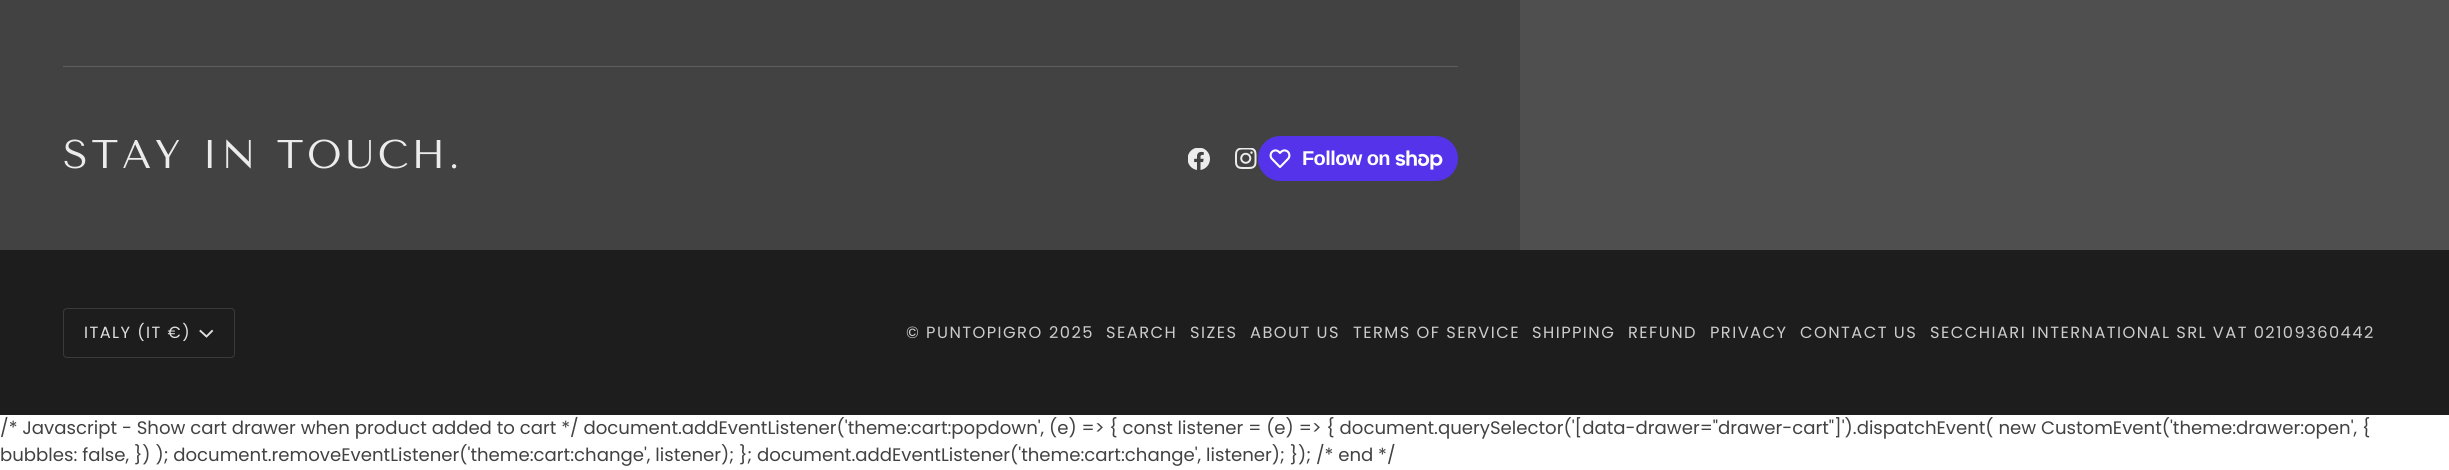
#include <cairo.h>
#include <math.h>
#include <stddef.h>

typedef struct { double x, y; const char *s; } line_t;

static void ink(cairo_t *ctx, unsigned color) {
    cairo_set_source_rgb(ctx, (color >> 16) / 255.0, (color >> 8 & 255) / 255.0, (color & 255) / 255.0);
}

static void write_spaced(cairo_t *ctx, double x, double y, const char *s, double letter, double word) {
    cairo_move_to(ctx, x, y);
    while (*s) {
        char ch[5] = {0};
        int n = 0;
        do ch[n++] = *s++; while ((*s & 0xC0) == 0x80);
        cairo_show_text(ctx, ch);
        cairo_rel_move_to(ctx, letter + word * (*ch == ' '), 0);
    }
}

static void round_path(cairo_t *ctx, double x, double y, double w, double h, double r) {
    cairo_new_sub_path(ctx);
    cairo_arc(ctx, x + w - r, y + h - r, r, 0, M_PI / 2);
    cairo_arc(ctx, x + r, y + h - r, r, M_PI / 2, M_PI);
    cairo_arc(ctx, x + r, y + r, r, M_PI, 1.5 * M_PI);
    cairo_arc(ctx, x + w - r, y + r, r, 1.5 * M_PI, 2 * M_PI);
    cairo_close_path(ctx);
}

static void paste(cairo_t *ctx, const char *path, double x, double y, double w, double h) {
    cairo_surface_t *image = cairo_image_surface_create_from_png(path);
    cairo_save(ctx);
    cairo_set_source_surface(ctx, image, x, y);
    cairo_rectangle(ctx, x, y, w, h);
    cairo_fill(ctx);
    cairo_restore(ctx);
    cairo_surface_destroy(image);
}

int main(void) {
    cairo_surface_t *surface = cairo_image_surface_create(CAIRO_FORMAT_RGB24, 2449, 470);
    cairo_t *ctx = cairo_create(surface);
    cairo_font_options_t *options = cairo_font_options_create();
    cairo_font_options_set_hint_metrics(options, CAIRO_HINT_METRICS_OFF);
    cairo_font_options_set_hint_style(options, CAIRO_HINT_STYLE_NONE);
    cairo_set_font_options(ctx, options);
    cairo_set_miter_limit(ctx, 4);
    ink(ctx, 0xFFFFFF);
    cairo_paint(ctx);
    ink(ctx, 0x424242);
    cairo_rectangle(ctx, 0, 0, 1520, 250);
    cairo_fill(ctx);
    ink(ctx, 0x5E5E5E);
    cairo_rectangle(ctx, 63, 66, 1395, 1);
    cairo_fill(ctx);
    cairo_select_font_face(ctx, "Tenor Sans", CAIRO_FONT_SLANT_NORMAL, CAIRO_FONT_WEIGHT_NORMAL);
    cairo_set_font_size(ctx, 40);
    ink(ctx, 0xECECEC);
    write_spaced(ctx, 63, 168, "STAY IN TOUCH.", 3.6, 0);
    paste(ctx, "media/1.png", 1188, 148, 22, 22);
    paste(ctx, "media/2.png", 1235, 148, 22, 21);
    ink(ctx, 0x5433EB);
    round_path(ctx, 1258, 136, 200, 45, 22.5);
    cairo_fill(ctx);
    paste(ctx, "media/3.png", 1269, 149, 22, 20);
    cairo_select_font_face(ctx, "Liberation Sans", CAIRO_FONT_SLANT_NORMAL, CAIRO_FONT_WEIGHT_BOLD);
    cairo_set_font_size(ctx, 20);
    ink(ctx, 0xFFFFFF);
    write_spaced(ctx, 1302, 165, "Follow on", -0.6, 0);
    paste(ctx, "media/4.png", 1395, 150, 48, 20);
    ink(ctx, 0x4F4F4F);
    cairo_rectangle(ctx, 1520, 0, 929, 250);
    cairo_fill(ctx);
    ink(ctx, 0x1D1D1D);
    cairo_rectangle(ctx, 0, 250, 2449, 165);
    cairo_fill(ctx);
    round_path(ctx, 63.5, 308.5, 171, 49, 3.5);
    ink(ctx, 0x3A3A3A);
    cairo_set_line_width(ctx, 1);
    cairo_stroke(ctx);
    cairo_select_font_face(ctx, "Poppins", CAIRO_FONT_SLANT_NORMAL, CAIRO_FONT_WEIGHT_NORMAL);
    cairo_set_font_size(ctx, 16.25);
    ink(ctx, 0xDFDFDF);
    write_spaced(ctx, 84, 338, "ITALY (IT €)", 1.45, 0);
    cairo_new_path(ctx);
    cairo_move_to(ctx, 200.5, 331);
    cairo_line_to(ctx, 206.5, 336.5);
    cairo_line_to(ctx, 212, 331);
    cairo_set_line_width(ctx, 1.9);
    cairo_set_line_cap(ctx, CAIRO_LINE_CAP_SQUARE);
    cairo_stroke(ctx);
    ink(ctx, 0xCCCCCC);
    {
        static const line_t items[] = {
            {906, 338, "© PUNTOPIGRO"},
            {1049, 338, "2025"},
            {1106, 338, "SEARCH"},
            {1190, 338, "SIZES"},
            {1250, 338, "ABOUT US"},
            {1353, 338, "TERMS OF SERVICE"},
            {1532, 338, "SHIPPING"},
            {1628, 338, "REFUND"},
            {1710, 338, "PRIVACY"},
            {1800, 338, "CONTACT US"},
            {1930, 338, "SECCHIARI INTERNATIONAL SRL VAT 02109360442"},
        };
        for (size_t i = 0; i < sizeof items / sizeof *items; i++) {
            write_spaced(ctx, items[i].x, items[i].y, items[i].s, 1.45, 0);
        }
    }
    cairo_set_font_size(ctx, 18.12);
    ink(ctx, 0x424242);
    cairo_move_to(ctx, 0, 434);
    cairo_show_text(ctx, "/* Javascript - Show cart drawer when product added to cart */ document.addEventListener('theme:cart:popdown', (e) => { const listener = (e) => { document.querySelector('[data-drawer=\"drawer-cart\"]').dispatchEvent( new CustomEvent('theme:drawer:open', {");
    cairo_move_to(ctx, 0, 461);
    cairo_show_text(ctx, "bubbles: false, }) ); document.removeEventListener('theme:cart:change', listener); }; document.addEventListener('theme:cart:change', listener); }); /* end */");
    cairo_surface_write_to_png(surface, "image.png");
    cairo_font_options_destroy(options);
    cairo_destroy(ctx);
    cairo_surface_destroy(surface);
    return 0;
}
